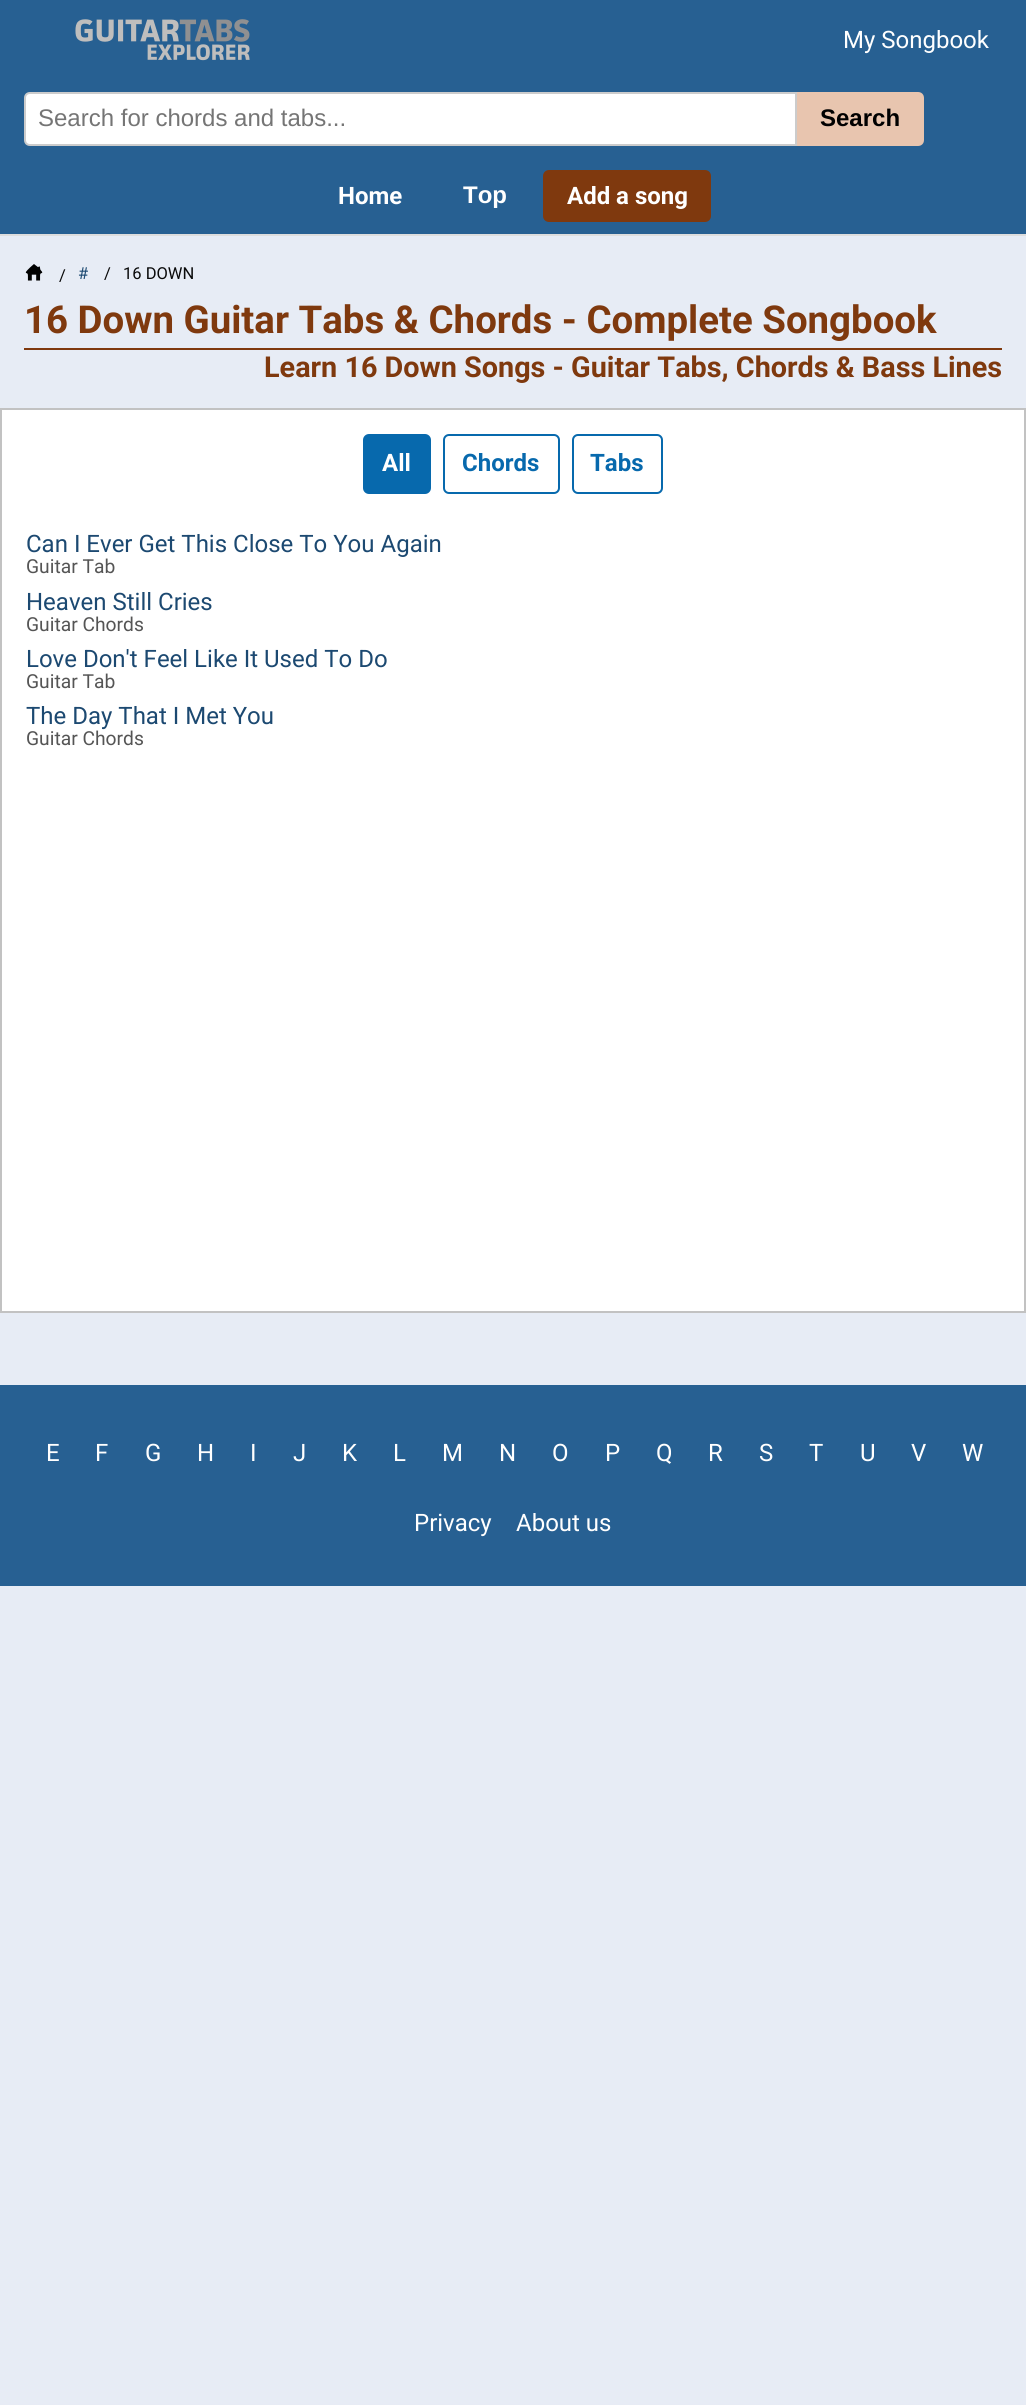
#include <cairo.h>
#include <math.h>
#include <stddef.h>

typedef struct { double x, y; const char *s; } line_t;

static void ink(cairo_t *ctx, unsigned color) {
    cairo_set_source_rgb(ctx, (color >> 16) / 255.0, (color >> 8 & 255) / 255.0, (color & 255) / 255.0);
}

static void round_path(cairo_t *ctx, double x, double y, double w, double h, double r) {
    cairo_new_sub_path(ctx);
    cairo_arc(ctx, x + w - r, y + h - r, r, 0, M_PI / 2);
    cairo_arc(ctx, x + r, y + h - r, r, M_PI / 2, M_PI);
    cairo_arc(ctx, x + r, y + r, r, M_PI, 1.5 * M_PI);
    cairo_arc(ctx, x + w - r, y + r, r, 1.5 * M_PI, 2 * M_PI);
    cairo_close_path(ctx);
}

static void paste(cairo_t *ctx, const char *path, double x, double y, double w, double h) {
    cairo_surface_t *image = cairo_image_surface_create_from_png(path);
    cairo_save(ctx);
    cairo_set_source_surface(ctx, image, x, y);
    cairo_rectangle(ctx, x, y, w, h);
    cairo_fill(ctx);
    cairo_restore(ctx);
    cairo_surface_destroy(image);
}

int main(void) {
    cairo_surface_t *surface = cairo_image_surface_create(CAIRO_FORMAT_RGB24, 1026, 2405);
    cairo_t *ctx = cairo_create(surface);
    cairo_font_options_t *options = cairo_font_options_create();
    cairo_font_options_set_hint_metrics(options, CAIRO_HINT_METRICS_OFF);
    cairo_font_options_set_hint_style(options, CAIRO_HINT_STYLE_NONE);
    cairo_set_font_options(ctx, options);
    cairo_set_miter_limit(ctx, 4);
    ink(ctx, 0xE7ECF5);
    cairo_paint(ctx);
    ink(ctx, 0x276092);
    cairo_rectangle(ctx, 0, 0, 1026, 234);
    cairo_fill(ctx);
    paste(ctx, "media/1.png", 75, 19, 175, 42);
    cairo_select_font_face(ctx, "Roboto", CAIRO_FONT_SLANT_NORMAL, CAIRO_FONT_WEIGHT_NORMAL);
    cairo_set_font_size(ctx, 24);
    ink(ctx, 0xFFFFFF);
    cairo_move_to(ctx, 843, 48);
    cairo_show_text(ctx, "My Songbook");
    cairo_new_path(ctx);
    cairo_move_to(ctx, 30, 93);
    cairo_line_to(ctx, 796, 93);
    cairo_line_to(ctx, 796, 145);
    cairo_line_to(ctx, 30, 145);
    cairo_curve_to(ctx, 27, 145, 25, 143, 25, 140);
    cairo_line_to(ctx, 25, 98);
    cairo_curve_to(ctx, 25, 95, 27, 93, 30, 93);
    cairo_close_path(ctx);
    cairo_fill_preserve(ctx);
    ink(ctx, 0xCCCCCC);
    cairo_stroke(ctx);
    cairo_select_font_face(ctx, "Liberation Sans", CAIRO_FONT_SLANT_NORMAL, CAIRO_FONT_WEIGHT_NORMAL);
    ink(ctx, 0x757575);
    cairo_move_to(ctx, 38, 126);
    cairo_show_text(ctx, "Search for chords and tabs...");
    ink(ctx, 0xE8C5AF);
    cairo_new_path(ctx);
    cairo_move_to(ctx, 797, 92);
    cairo_line_to(ctx, 918, 92);
    cairo_curve_to(ctx, 921.5, 92, 924, 94.5, 924, 98);
    cairo_line_to(ctx, 924, 140);
    cairo_curve_to(ctx, 924, 143.5, 921.5, 146, 918, 146);
    cairo_line_to(ctx, 797, 146);
    cairo_close_path(ctx);
    cairo_fill(ctx);
    cairo_select_font_face(ctx, "Liberation Sans", CAIRO_FONT_SLANT_NORMAL, CAIRO_FONT_WEIGHT_BOLD);
    ink(ctx, 0x000000);
    cairo_move_to(ctx, 820, 126);
    cairo_show_text(ctx, "Search");
    ink(ctx, 0xDDDDDD);
    cairo_rectangle(ctx, 0, 234, 1026, 2);
    cairo_fill(ctx);
    cairo_select_font_face(ctx, "Roboto", CAIRO_FONT_SLANT_NORMAL, CAIRO_FONT_WEIGHT_BOLD);
    ink(ctx, 0xFFFFFF);
    cairo_move_to(ctx, 338, 204);
    cairo_show_text(ctx, "Home");
    cairo_select_font_face(ctx, "Liberation Sans", CAIRO_FONT_SLANT_NORMAL, CAIRO_FONT_WEIGHT_BOLD);
    cairo_move_to(ctx, 463, 203);
    cairo_show_text(ctx, "Top");
    ink(ctx, 0x7F390E);
    round_path(ctx, 543, 170, 168, 52, 6);
    cairo_fill(ctx);
    cairo_select_font_face(ctx, "Roboto", CAIRO_FONT_SLANT_NORMAL, CAIRO_FONT_WEIGHT_BOLD);
    ink(ctx, 0xFFFFFF);
    cairo_move_to(ctx, 567, 204);
    cairo_show_text(ctx, "Add a song");
    paste(ctx, "media/2.png", 25, 264, 18, 17);
    cairo_select_font_face(ctx, "Roboto", CAIRO_FONT_SLANT_NORMAL, CAIRO_FONT_WEIGHT_NORMAL);
    cairo_set_font_size(ctx, 16.5);
    ink(ctx, 0x0A0A0A);
    cairo_move_to(ctx, 59, 281);
    cairo_show_text(ctx, "/");
    ink(ctx, 0x1C4971);
    cairo_move_to(ctx, 78, 279);
    cairo_show_text(ctx, "#");
    ink(ctx, 0x0A0A0A);
    cairo_move_to(ctx, 104, 279);
    cairo_show_text(ctx, "/");
    cairo_move_to(ctx, 123, 279);
    cairo_show_text(ctx, "16 DOWN");
    ink(ctx, 0x7F390E);
    cairo_rectangle(ctx, 24, 348, 978, 2);
    cairo_fill(ctx);
    cairo_select_font_face(ctx, "Roboto", CAIRO_FONT_SLANT_NORMAL, CAIRO_FONT_WEIGHT_BOLD);
    cairo_set_font_size(ctx, 38.4);
    cairo_move_to(ctx, 24, 333);
    cairo_show_text(ctx, "16 Down Guitar Tabs & Chords - Complete Songbook");
    cairo_set_font_size(ctx, 28.8);
    cairo_move_to(ctx, 264, 377);
    cairo_show_text(ctx, "Learn 16 Down Songs - Guitar Tabs, Chords & Bass Lines");
    ink(ctx, 0xFFFFFF);
    cairo_rectangle(ctx, 1, 409, 1024, 903);
    cairo_fill_preserve(ctx);
    ink(ctx, 0xC2C2C2);
    cairo_stroke(ctx);
    ink(ctx, 0x0769AD);
    round_path(ctx, 364, 435, 66, 58, 5);
    cairo_fill_preserve(ctx);
    cairo_stroke(ctx);
    cairo_set_font_size(ctx, 24);
    ink(ctx, 0xFFFFFF);
    cairo_move_to(ctx, 382, 471);
    cairo_show_text(ctx, "All");
    round_path(ctx, 444, 435, 115, 58, 5);
    ink(ctx, 0x0769AD);
    cairo_stroke(ctx);
    cairo_move_to(ctx, 462, 471);
    cairo_show_text(ctx, "Chords");
    round_path(ctx, 573, 435, 89, 58, 5);
    cairo_stroke(ctx);
    cairo_move_to(ctx, 590, 471);
    cairo_show_text(ctx, "Tabs");
    cairo_select_font_face(ctx, "Roboto", CAIRO_FONT_SLANT_NORMAL, CAIRO_FONT_WEIGHT_NORMAL);
    ink(ctx, 0x1C4971);
    cairo_move_to(ctx, 26, 552);
    cairo_show_text(ctx, "Can I Ever Get This Close To You Again");
    cairo_set_font_size(ctx, 19.25);
    ink(ctx, 0x555555);
    cairo_move_to(ctx, 26, 573);
    cairo_show_text(ctx, "Guitar Tab");
    cairo_set_font_size(ctx, 24);
    ink(ctx, 0x1C4971);
    cairo_move_to(ctx, 26, 610);
    cairo_show_text(ctx, "Heaven Still Cries");
    cairo_set_font_size(ctx, 19.25);
    ink(ctx, 0x555555);
    cairo_move_to(ctx, 26, 631);
    cairo_show_text(ctx, "Guitar Chords");
    cairo_set_font_size(ctx, 24);
    ink(ctx, 0x1C4971);
    cairo_move_to(ctx, 26, 667);
    cairo_show_text(ctx, "Love Don't Feel Like It Used To Do");
    cairo_set_font_size(ctx, 19.25);
    ink(ctx, 0x555555);
    cairo_move_to(ctx, 26, 688);
    cairo_show_text(ctx, "Guitar Tab");
    cairo_set_font_size(ctx, 24);
    ink(ctx, 0x1C4971);
    cairo_move_to(ctx, 26, 724);
    cairo_show_text(ctx, "The Day That I Met You");
    cairo_set_font_size(ctx, 19.25);
    ink(ctx, 0x555555);
    cairo_move_to(ctx, 26, 745);
    cairo_show_text(ctx, "Guitar Chords");
    ink(ctx, 0x276092);
    cairo_rectangle(ctx, 0, 1385, 1026, 201);
    cairo_fill(ctx);
    cairo_set_font_size(ctx, 24);
    ink(ctx, 0xFFFFFF);
    {
        static const line_t items[] = {
            {46, 1461, "E"},
            {95, 1461, "F"},
            {145, 1461, "G"},
            {197, 1461, "H"},
            {250, 1461, "I"},
            {293, 1461, "J"},
            {342, 1461, "K"},
            {393, 1461, "L"},
            {442, 1461, "M"},
            {499, 1461, "N"},
            {552, 1461, "O"},
            {605, 1461, "P"},
            {656, 1461, "Q"},
            {708, 1461, "R"},
            {759, 1461, "S"},
            {809, 1461, "T"},
            {860, 1461, "U"},
            {911, 1461, "V"},
            {962, 1461, "W"},
            {414, 1531, "Privacy"},
            {516, 1531, "About us"},
        };
        for (size_t i = 0; i < sizeof items / sizeof *items; i++) {
            cairo_move_to(ctx, items[i].x, items[i].y);
            cairo_show_text(ctx, items[i].s);
        }
    }
    cairo_surface_write_to_png(surface, "image.png");
    cairo_font_options_destroy(options);
    cairo_destroy(ctx);
    cairo_surface_destroy(surface);
    return 0;
}
